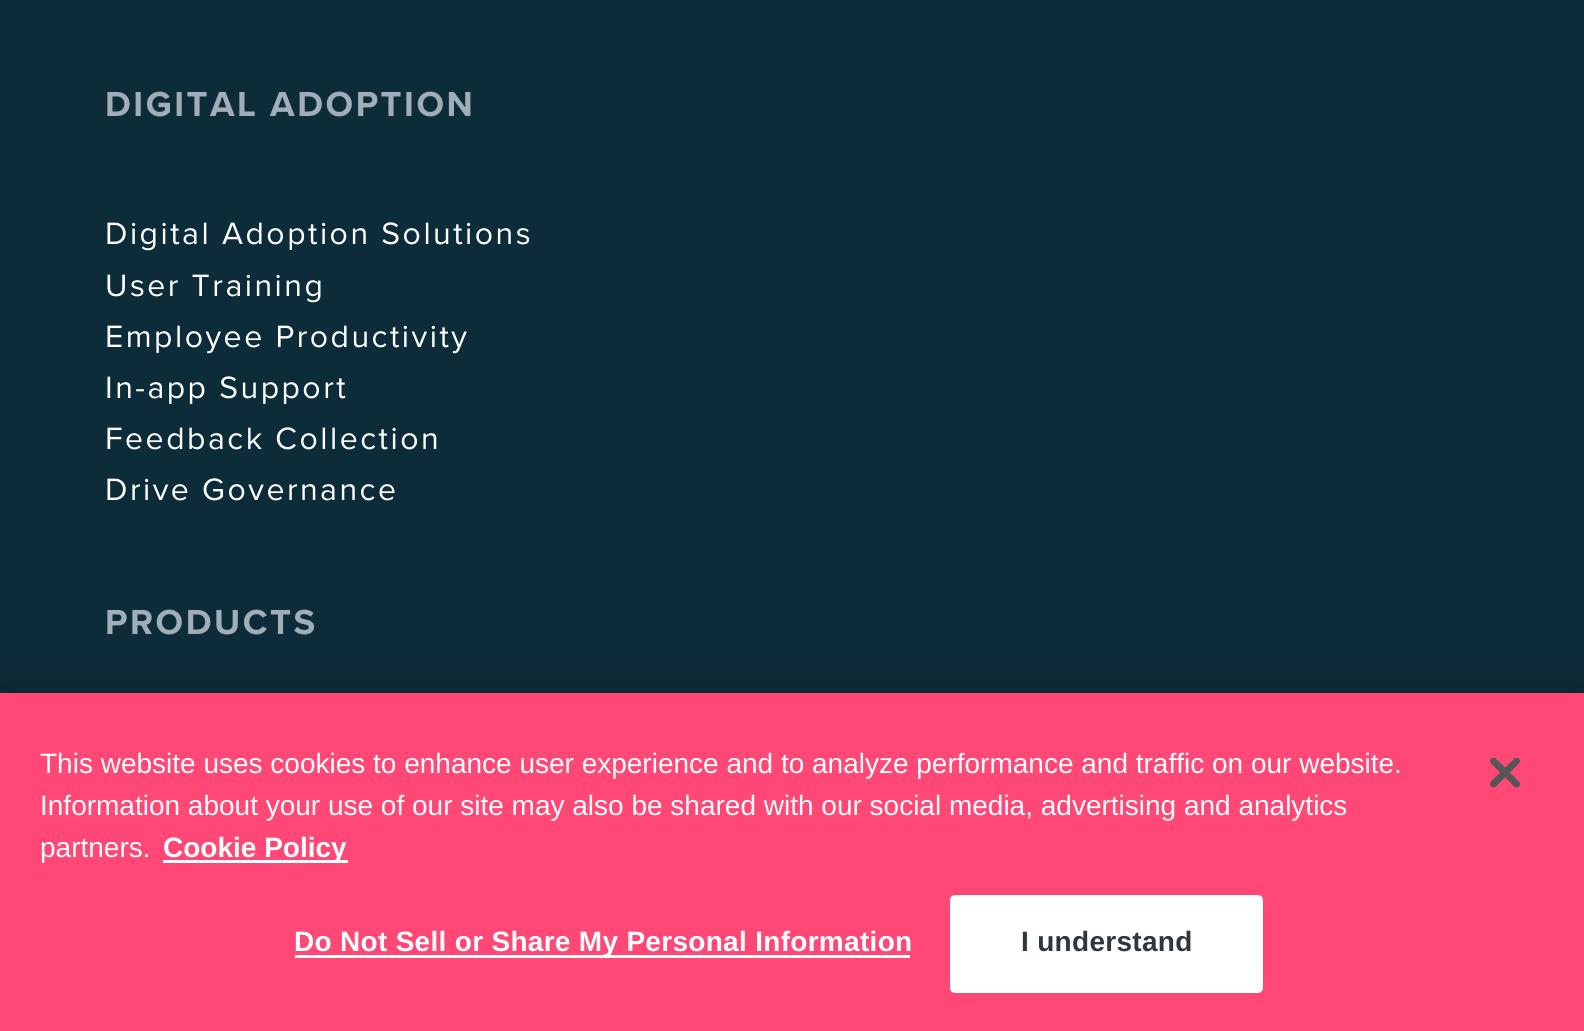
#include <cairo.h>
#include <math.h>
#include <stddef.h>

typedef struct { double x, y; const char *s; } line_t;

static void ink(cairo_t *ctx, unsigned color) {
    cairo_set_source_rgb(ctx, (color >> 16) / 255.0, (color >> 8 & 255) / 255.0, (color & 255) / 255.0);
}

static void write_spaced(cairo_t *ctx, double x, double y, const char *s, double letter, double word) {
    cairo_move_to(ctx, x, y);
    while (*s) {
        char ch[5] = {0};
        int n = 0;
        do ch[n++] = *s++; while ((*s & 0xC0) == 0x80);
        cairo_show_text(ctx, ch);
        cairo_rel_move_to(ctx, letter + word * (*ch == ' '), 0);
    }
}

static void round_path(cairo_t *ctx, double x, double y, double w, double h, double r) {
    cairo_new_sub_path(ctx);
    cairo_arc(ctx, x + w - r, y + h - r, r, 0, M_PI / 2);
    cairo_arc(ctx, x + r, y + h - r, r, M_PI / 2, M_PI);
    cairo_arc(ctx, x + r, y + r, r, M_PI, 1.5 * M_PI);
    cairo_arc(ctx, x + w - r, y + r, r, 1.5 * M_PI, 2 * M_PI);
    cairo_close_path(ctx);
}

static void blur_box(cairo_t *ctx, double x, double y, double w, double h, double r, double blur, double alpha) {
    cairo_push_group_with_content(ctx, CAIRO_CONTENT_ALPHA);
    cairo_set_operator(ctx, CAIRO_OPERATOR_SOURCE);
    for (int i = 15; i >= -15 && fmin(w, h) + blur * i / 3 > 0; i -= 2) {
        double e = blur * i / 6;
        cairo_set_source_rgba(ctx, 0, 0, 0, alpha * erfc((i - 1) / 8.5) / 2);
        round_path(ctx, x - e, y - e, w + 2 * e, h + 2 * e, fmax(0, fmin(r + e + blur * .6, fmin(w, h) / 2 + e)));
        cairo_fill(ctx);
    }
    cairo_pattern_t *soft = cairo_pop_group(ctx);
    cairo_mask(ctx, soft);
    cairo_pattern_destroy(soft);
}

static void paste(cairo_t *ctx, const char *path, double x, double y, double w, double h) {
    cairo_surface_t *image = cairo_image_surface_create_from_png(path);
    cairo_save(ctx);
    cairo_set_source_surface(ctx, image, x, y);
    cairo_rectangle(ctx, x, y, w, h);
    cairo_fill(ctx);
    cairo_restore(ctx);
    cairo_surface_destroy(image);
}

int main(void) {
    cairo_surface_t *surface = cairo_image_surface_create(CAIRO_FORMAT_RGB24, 1584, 1031);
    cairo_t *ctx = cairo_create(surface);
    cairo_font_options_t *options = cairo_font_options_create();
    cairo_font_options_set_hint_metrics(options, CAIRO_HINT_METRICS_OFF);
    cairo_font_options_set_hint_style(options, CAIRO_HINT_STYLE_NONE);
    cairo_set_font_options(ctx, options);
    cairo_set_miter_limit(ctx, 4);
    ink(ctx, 0x0D2C3A);
    cairo_paint(ctx);
    cairo_select_font_face(ctx, "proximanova", CAIRO_FONT_SLANT_NORMAL, CAIRO_FONT_WEIGHT_BOLD);
    cairo_set_font_size(ctx, 36);
    ink(ctx, 0xA1AEB7);
    write_spaced(ctx, 105, 116, "DIGITAL ADOPTION", 2.5, 0);
    cairo_select_font_face(ctx, "proximanova", CAIRO_FONT_SLANT_NORMAL, CAIRO_FONT_WEIGHT_NORMAL);
    cairo_set_font_size(ctx, 32);
    ink(ctx, 0xFFFFFF);
    {
        static const line_t items[] = {
            {105, 244, "Digital Adoption Solutions"},
            {105, 296, "User Training"},
            {105, 347, "Employee Productivity"},
            {105, 398, "In-app Support"},
            {105, 449, "Feedback Collection"},
            {105, 500, "Drive Governance"},
        };
        for (size_t i = 0; i < sizeof items / sizeof *items; i++) {
            write_spaced(ctx, items[i].x, items[i].y, items[i].s, 2.5, 0);
        }
    }
    cairo_select_font_face(ctx, "proximanova", CAIRO_FONT_SLANT_NORMAL, CAIRO_FONT_WEIGHT_BOLD);
    cairo_set_font_size(ctx, 36);
    ink(ctx, 0xA1AEB7);
    write_spaced(ctx, 105, 634, "PRODUCTS", 2.5, 0);
    ink(ctx, 0x000000);
    blur_box(ctx, 0, 693, 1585, 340, 0, 22.5, 0.2);
    ink(ctx, 0xFF4876);
    cairo_rectangle(ctx, 0, 693, 1584, 338);
    cairo_fill(ctx);
    cairo_select_font_face(ctx, "Liberation Sans", CAIRO_FONT_SLANT_NORMAL, CAIRO_FONT_WEIGHT_NORMAL);
    cairo_set_font_size(ctx, 28);
    ink(ctx, 0xFFFFFF);
    {
        static const line_t items[] = {
            {40, 773, "This website uses cookies to enhance user experience and to analyze performance and traffic on our website."},
            {40, 815, "Information about your use of our site may also be shared with our social media, advertising and analytics"},
            {40, 857, "partners."},
        };
        for (size_t i = 0; i < sizeof items / sizeof *items; i++) {
            cairo_move_to(ctx, items[i].x, items[i].y);
            cairo_show_text(ctx, items[i].s);
        }
    }
    cairo_rectangle(ctx, 163, 860, 185, 3);
    cairo_fill(ctx);
    cairo_select_font_face(ctx, "Liberation Sans", CAIRO_FONT_SLANT_NORMAL, CAIRO_FONT_WEIGHT_BOLD);
    cairo_move_to(ctx, 163, 857);
    cairo_show_text(ctx, "Cookie Policy");
    cairo_rectangle(ctx, 295, 955, 615, 3);
    cairo_fill(ctx);
    write_spaced(ctx, 294, 951, "Do Not Sell or Share My Personal Information", 0.3, 0);
    round_path(ctx, 951.5, 896.5, 310, 95, 3.5);
    cairo_fill_preserve(ctx);
    cairo_set_line_width(ctx, 3);
    cairo_stroke(ctx);
    ink(ctx, 0x2F3641);
    write_spaced(ctx, 1021, 951, "I understand", 0.3, 0);
    paste(ctx, "media/1.png", 1490, 758, 30, 30);
    cairo_surface_write_to_png(surface, "image.png");
    cairo_font_options_destroy(options);
    cairo_destroy(ctx);
    cairo_surface_destroy(surface);
    return 0;
}
